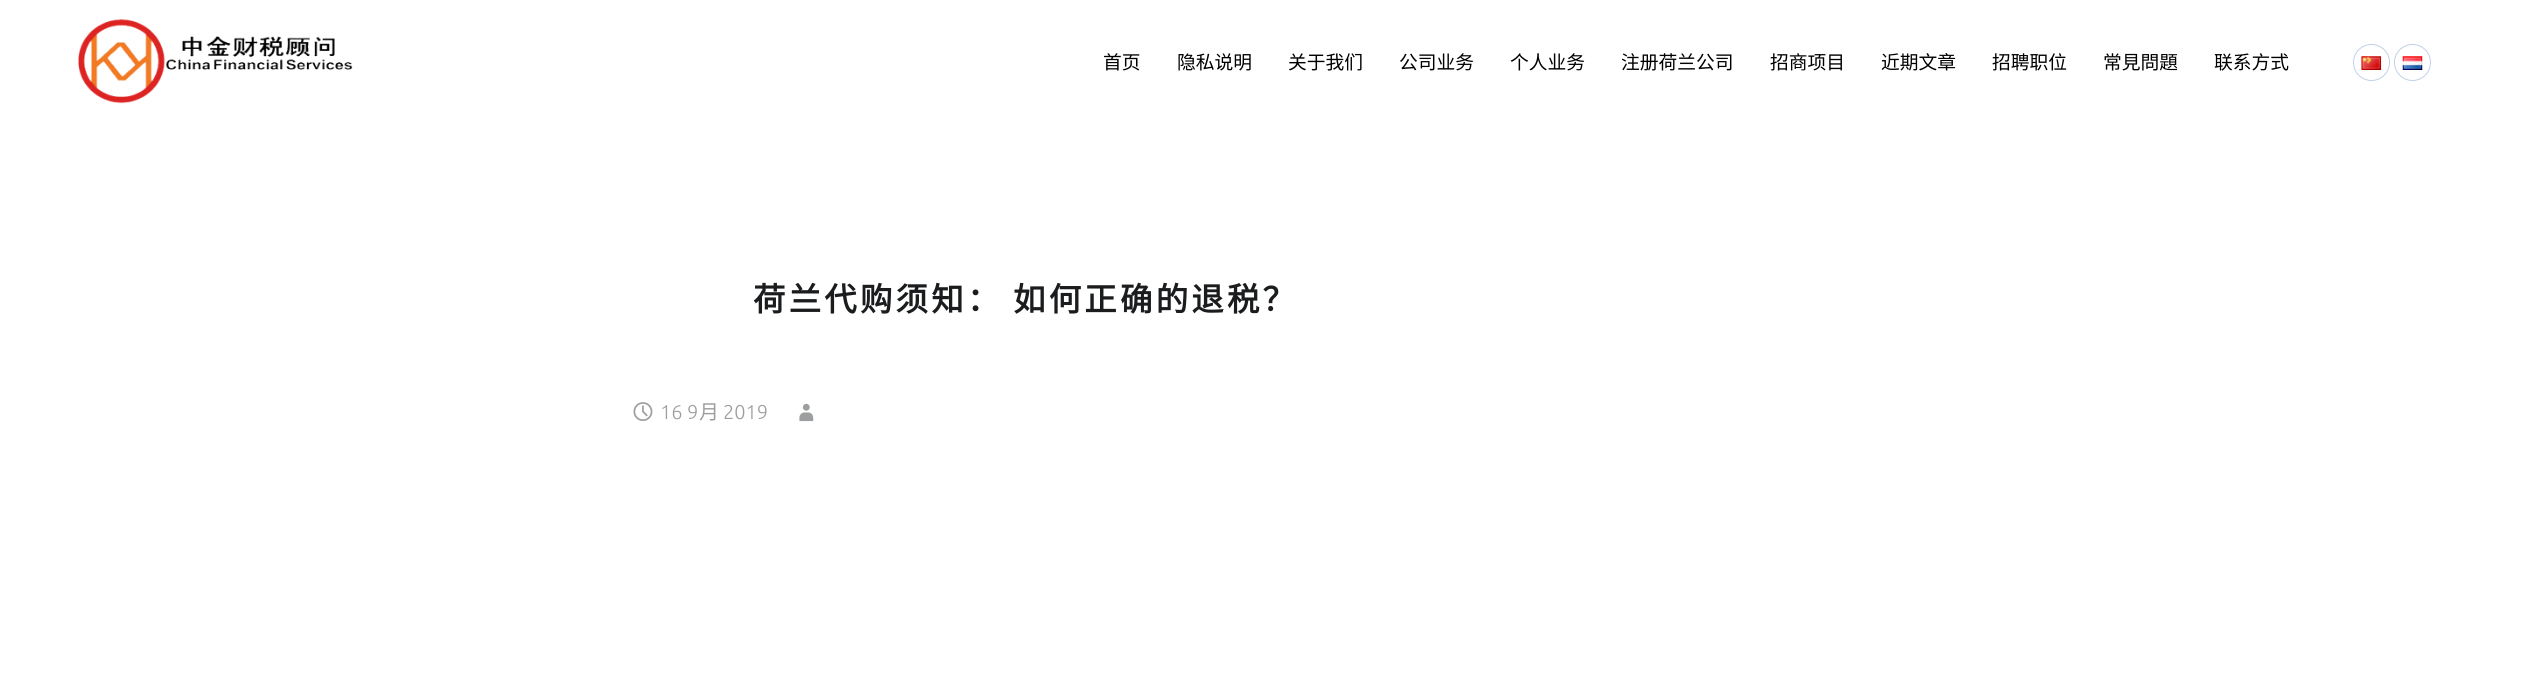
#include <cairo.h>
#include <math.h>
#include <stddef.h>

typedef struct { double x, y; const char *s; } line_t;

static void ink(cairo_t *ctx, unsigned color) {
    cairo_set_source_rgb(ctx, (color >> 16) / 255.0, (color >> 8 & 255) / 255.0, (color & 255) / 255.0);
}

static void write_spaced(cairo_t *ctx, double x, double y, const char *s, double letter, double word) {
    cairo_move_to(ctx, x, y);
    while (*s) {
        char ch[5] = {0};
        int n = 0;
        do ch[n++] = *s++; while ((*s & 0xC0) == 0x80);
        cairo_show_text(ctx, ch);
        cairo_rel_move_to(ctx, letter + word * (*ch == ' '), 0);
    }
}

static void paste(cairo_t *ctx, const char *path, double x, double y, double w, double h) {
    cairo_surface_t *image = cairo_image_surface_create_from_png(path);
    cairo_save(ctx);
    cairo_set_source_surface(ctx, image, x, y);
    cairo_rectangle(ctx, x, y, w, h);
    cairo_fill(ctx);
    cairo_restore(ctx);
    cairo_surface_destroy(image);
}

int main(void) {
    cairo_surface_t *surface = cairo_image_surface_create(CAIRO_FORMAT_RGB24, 2534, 691);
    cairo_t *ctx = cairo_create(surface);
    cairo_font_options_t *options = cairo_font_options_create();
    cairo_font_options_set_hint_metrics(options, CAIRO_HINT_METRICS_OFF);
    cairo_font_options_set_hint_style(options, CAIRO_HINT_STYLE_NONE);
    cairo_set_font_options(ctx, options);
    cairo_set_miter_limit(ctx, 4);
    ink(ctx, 0xFFFFFF);
    cairo_paint(ctx);
    paste(ctx, "media/1.png", 78, 19, 275, 85);
    cairo_select_font_face(ctx, "Noto Sans CJK SC", CAIRO_FONT_SLANT_NORMAL, CAIRO_FONT_WEIGHT_NORMAL);
    cairo_set_font_size(ctx, 18.75);
    ink(ctx, 0x000000);
    {
        static const line_t items[] = {
            {1103, 69, "首页"},
            {1177, 69, "隐私说明"},
            {1288, 69, "关于我们"},
            {1399, 69, "公司业务"},
            {1510, 69, "个人业务"},
            {1621, 69, "注册荷兰公司"},
            {1770, 69, "招商项目"},
            {1881, 69, "近期文章"},
            {1992, 69, "招聘职位"},
            {2103, 69, "常見問題"},
            {2214, 69, "联系方式"},
        };
        for (size_t i = 0; i < sizeof items / sizeof *items; i++) {
            cairo_move_to(ctx, items[i].x, items[i].y);
            cairo_show_text(ctx, items[i].s);
        }
    }
    cairo_new_path(ctx);
    cairo_arc(ctx, 2371.5, 62.5, 18, 0, 2 * M_PI);
    ink(ctx, 0xC2D0EA);
    cairo_set_line_width(ctx, 1);
    cairo_stroke(ctx);
    paste(ctx, "media/2.png", 2361, 56, 21, 14);
    cairo_arc(ctx, 2412.5, 62.5, 18, 0, 2 * M_PI);
    cairo_stroke(ctx);
    paste(ctx, "media/3.png", 2402, 56, 21, 14);
    cairo_select_font_face(ctx, "Noto Sans CJK SC", CAIRO_FONT_SLANT_NORMAL, CAIRO_FONT_WEIGHT_BOLD);
    cairo_set_font_size(ctx, 32.4);
    ink(ctx, 0x1A1C1E);
    write_spaced(ctx, 753, 311, "荷兰代购须知： 如何正确的退税？", 3.25, 0);
    paste(ctx, "media/4.png", 633, 402, 20, 19);
    cairo_select_font_face(ctx, "Ubuntu Light", CAIRO_FONT_SLANT_NORMAL, CAIRO_FONT_WEIGHT_NORMAL);
    cairo_set_font_size(ctx, 20);
    ink(ctx, 0x9D9E9F);
    cairo_move_to(ctx, 660, 419);
    cairo_show_text(ctx, "16 9");
    cairo_select_font_face(ctx, "Noto Sans CJK SC", CAIRO_FONT_SLANT_NORMAL, CAIRO_FONT_WEIGHT_NORMAL);
    cairo_move_to(ctx, 699, 419);
    cairo_show_text(ctx, "月");
    cairo_select_font_face(ctx, "Ubuntu Light", CAIRO_FONT_SLANT_NORMAL, CAIRO_FONT_WEIGHT_NORMAL);
    cairo_move_to(ctx, 723, 419);
    cairo_show_text(ctx, "2019");
    paste(ctx, "media/5.png", 799, 403, 15, 19);
    cairo_surface_write_to_png(surface, "image.png");
    cairo_font_options_destroy(options);
    cairo_destroy(ctx);
    cairo_surface_destroy(surface);
    return 0;
}
